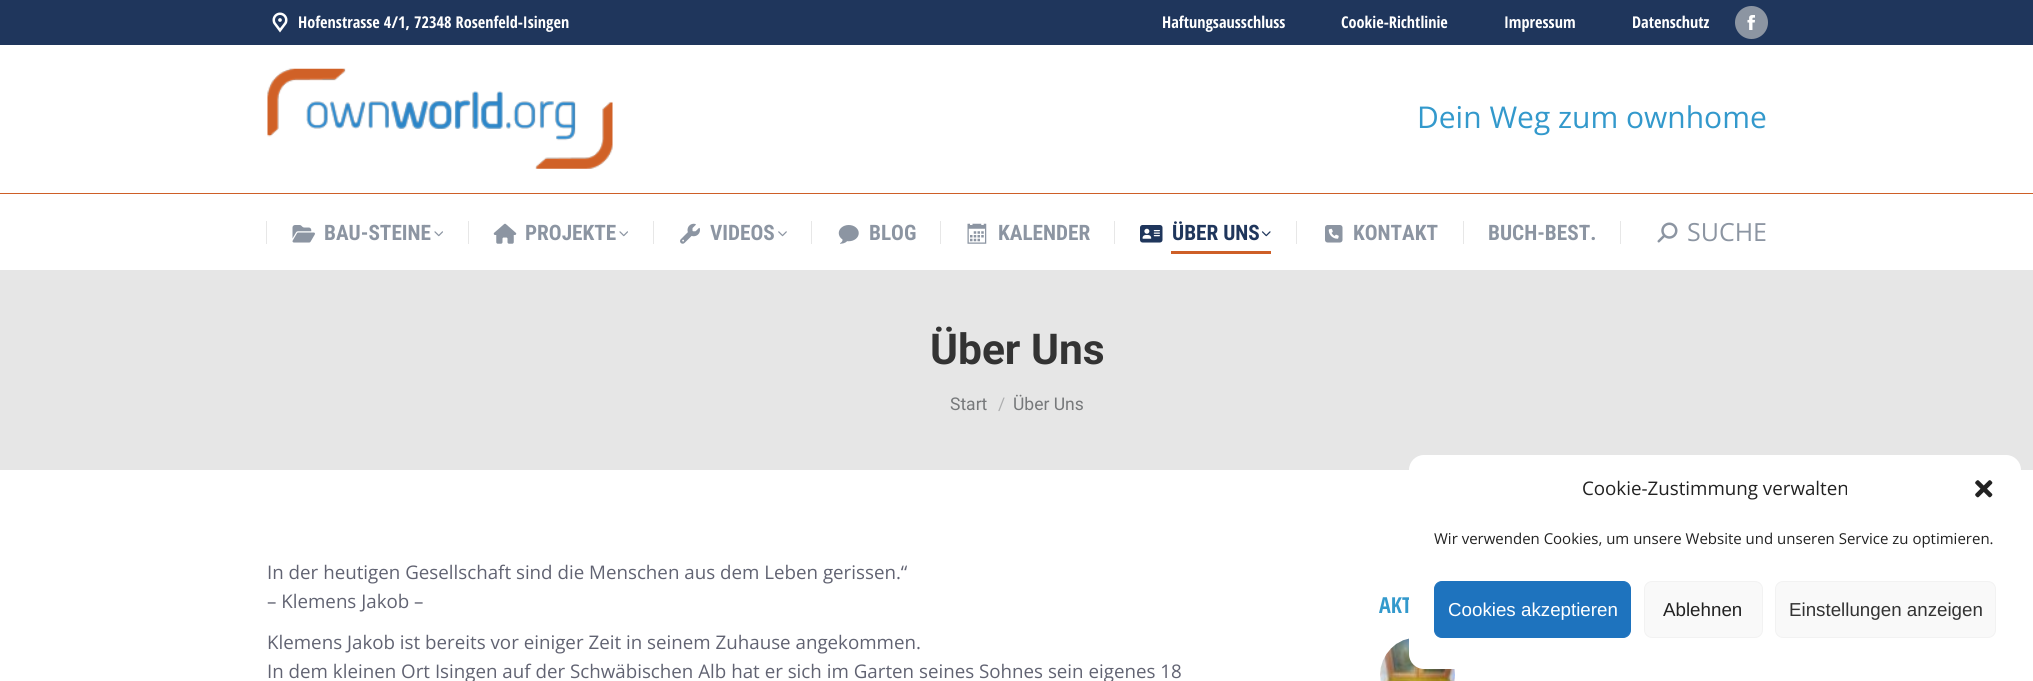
#include <cairo.h>
#include <math.h>
#include <stddef.h>

typedef struct { double x, y; const char *s; } line_t;

static void ink(cairo_t *ctx, unsigned color) {
    cairo_set_source_rgb(ctx, (color >> 16) / 255.0, (color >> 8 & 255) / 255.0, (color & 255) / 255.0);
}

static void round_path(cairo_t *ctx, double x, double y, double w, double h, double r) {
    cairo_new_sub_path(ctx);
    cairo_arc(ctx, x + w - r, y + h - r, r, 0, M_PI / 2);
    cairo_arc(ctx, x + r, y + h - r, r, M_PI / 2, M_PI);
    cairo_arc(ctx, x + r, y + r, r, M_PI, 1.5 * M_PI);
    cairo_arc(ctx, x + w - r, y + r, r, 1.5 * M_PI, 2 * M_PI);
    cairo_close_path(ctx);
}

static void paste(cairo_t *ctx, const char *path, double x, double y, double w, double h) {
    cairo_surface_t *image = cairo_image_surface_create_from_png(path);
    cairo_save(ctx);
    cairo_set_source_surface(ctx, image, x, y);
    cairo_rectangle(ctx, x, y, w, h);
    cairo_fill(ctx);
    cairo_restore(ctx);
    cairo_surface_destroy(image);
}

int main(void) {
    cairo_surface_t *surface = cairo_image_surface_create(CAIRO_FORMAT_RGB24, 2033, 681);
    cairo_t *ctx = cairo_create(surface);
    cairo_font_options_t *options = cairo_font_options_create();
    cairo_font_options_set_hint_metrics(options, CAIRO_HINT_METRICS_OFF);
    cairo_font_options_set_hint_style(options, CAIRO_HINT_STYLE_NONE);
    cairo_set_font_options(ctx, options);
    cairo_set_miter_limit(ctx, 4);
    ink(ctx, 0xFFFFFF);
    cairo_paint(ctx);
    ink(ctx, 0x1F365C);
    cairo_rectangle(ctx, 0, 0, 2033, 45);
    cairo_fill(ctx);
    paste(ctx, "media/1.png", 272, 12, 16, 21);
    cairo_select_font_face(ctx, "Open Sans Condensed", CAIRO_FONT_SLANT_NORMAL, CAIRO_FONT_WEIGHT_BOLD);
    cairo_set_font_size(ctx, 16.25);
    ink(ctx, 0xFFFFFF);
    {
        static const line_t items[] = {
            {298, 28, "Hofenstrasse 4/1, 72348 Rosenfeld-Isingen"},
            {1162, 28, "Haftungsausschluss"},
            {1341, 28, "Cookie-Richtlinie"},
            {1504, 28, "Impressum"},
            {1632, 28, "Datenschutz"},
        };
        for (size_t i = 0; i < sizeof items / sizeof *items; i++) {
            cairo_move_to(ctx, items[i].x, items[i].y);
            cairo_show_text(ctx, items[i].s);
        }
    }
    ink(ctx, 0x8C95A2);
    cairo_new_path(ctx);
    cairo_arc(ctx, 1751.5, 22.5, 16.5, 0, 2 * M_PI);
    cairo_fill(ctx);
    paste(ctx, "media/2.png", 1747, 15, 8, 15);
    paste(ctx, "media/3.png", 267, 68, 346, 101);
    cairo_select_font_face(ctx, "Open Sans", CAIRO_FONT_SLANT_NORMAL, CAIRO_FONT_WEIGHT_NORMAL);
    cairo_set_font_size(ctx, 30);
    ink(ctx, 0x3399CC);
    cairo_move_to(ctx, 1417, 128);
    cairo_show_text(ctx, "Dein Weg zum ownhome");
    ink(ctx, 0xCE5F27);
    cairo_rectangle(ctx, 0, 193, 2033, 1);
    cairo_fill(ctx);
    ink(ctx, 0xE7E7E7);
    cairo_rectangle(ctx, 266, 221, 1, 23);
    cairo_fill(ctx);
    paste(ctx, "media/4.png", 292, 225, 23, 18);
    cairo_select_font_face(ctx, "Roboto Condensed", CAIRO_FONT_SLANT_NORMAL, CAIRO_FONT_WEIGHT_BOLD);
    cairo_set_font_size(ctx, 21.25);
    ink(ctx, 0x8C95A2);
    cairo_move_to(ctx, 324, 240);
    cairo_show_text(ctx, "BAU-STEINE");
    paste(ctx, "media/5.png", 434, 231, 9, 6);
    ink(ctx, 0xE7E7E7);
    cairo_rectangle(ctx, 468, 221, 1, 23);
    cairo_fill(ctx);
    paste(ctx, "media/6.png", 493, 223, 24, 21);
    ink(ctx, 0x8C95A2);
    cairo_move_to(ctx, 525, 240);
    cairo_show_text(ctx, "PROJEKTE");
    paste(ctx, "media/5.png", 619, 231, 9, 6);
    ink(ctx, 0xE7E7E7);
    cairo_rectangle(ctx, 653, 221, 1, 23);
    cairo_fill(ctx);
    paste(ctx, "media/7.png", 680, 223, 20, 21);
    ink(ctx, 0x8C95A2);
    cairo_move_to(ctx, 710, 240);
    cairo_show_text(ctx, "VIDEOS");
    paste(ctx, "media/8.png", 778, 231, 9, 6);
    ink(ctx, 0xE7E7E7);
    cairo_rectangle(ctx, 811, 221, 1, 23);
    cairo_fill(ctx);
    paste(ctx, "media/9.png", 838, 225, 21, 19);
    ink(ctx, 0x8C95A2);
    cairo_move_to(ctx, 869, 240);
    cairo_show_text(ctx, "BLOG");
    ink(ctx, 0xE7E7E7);
    cairo_rectangle(ctx, 940, 221, 1, 23);
    cairo_fill(ctx);
    paste(ctx, "media/10.png", 967, 223, 20, 21);
    ink(ctx, 0x8C95A2);
    cairo_move_to(ctx, 998, 240);
    cairo_show_text(ctx, "KALENDER");
    ink(ctx, 0xE7E7E7);
    cairo_rectangle(ctx, 1114, 221, 1, 23);
    cairo_fill(ctx);
    paste(ctx, "media/11.png", 1140, 225, 23, 18);
    ink(ctx, 0x1F365C);
    cairo_move_to(ctx, 1172, 240);
    cairo_show_text(ctx, "ÜBER UNS");
    paste(ctx, "media/12.png", 1261, 231, 10, 6);
    ink(ctx, 0xCE5F27);
    cairo_rectangle(ctx, 1171, 251, 100, 3);
    cairo_fill(ctx);
    ink(ctx, 0xE7E7E7);
    cairo_rectangle(ctx, 1296, 221, 1, 23);
    cairo_fill(ctx);
    paste(ctx, "media/13.png", 1325, 225, 18, 18);
    ink(ctx, 0x8C95A2);
    cairo_move_to(ctx, 1353, 240);
    cairo_show_text(ctx, "KONTAKT");
    ink(ctx, 0xE7E7E7);
    cairo_rectangle(ctx, 1463, 221, 1, 23);
    cairo_fill(ctx);
    ink(ctx, 0x8C95A2);
    cairo_move_to(ctx, 1488, 240);
    cairo_show_text(ctx, "BUCH-BEST.");
    ink(ctx, 0xE7E7E7);
    cairo_rectangle(ctx, 1620, 221, 1, 23);
    cairo_fill(ctx);
    paste(ctx, "media/14.png", 1657, 222, 21, 21);
    cairo_select_font_face(ctx, "Open Sans", CAIRO_FONT_SLANT_NORMAL, CAIRO_FONT_WEIGHT_NORMAL);
    cairo_set_font_size(ctx, 25);
    ink(ctx, 0x8C95A2);
    cairo_move_to(ctx, 1687, 241);
    cairo_show_text(ctx, "SUCHE");
    ink(ctx, 0xE6E6E6);
    cairo_rectangle(ctx, 0, 270, 2033, 200);
    cairo_fill(ctx);
    cairo_select_font_face(ctx, "Roboto", CAIRO_FONT_SLANT_NORMAL, CAIRO_FONT_WEIGHT_BOLD);
    cairo_set_font_size(ctx, 42.5);
    ink(ctx, 0x333333);
    cairo_move_to(ctx, 930, 364);
    cairo_show_text(ctx, "Über Uns");
    cairo_select_font_face(ctx, "Roboto", CAIRO_FONT_SLANT_NORMAL, CAIRO_FONT_WEIGHT_NORMAL);
    cairo_set_font_size(ctx, 17.5);
    ink(ctx, 0x76787A);
    cairo_move_to(ctx, 950, 410);
    cairo_show_text(ctx, "Start");
    ink(ctx, 0xAEAFB0);
    cairo_move_to(ctx, 998, 410);
    cairo_show_text(ctx, "/");
    ink(ctx, 0x76787A);
    cairo_move_to(ctx, 1013, 410);
    cairo_show_text(ctx, "Über Uns");
    cairo_select_font_face(ctx, "Open Sans", CAIRO_FONT_SLANT_NORMAL, CAIRO_FONT_WEIGHT_NORMAL);
    cairo_set_font_size(ctx, 18.75);
    ink(ctx, 0x616372);
    {
        static const line_t items[] = {
            {267, 579, "In der heutigen Gesellschaft sind die Menschen aus dem Leben gerissen.“"},
            {267, 608, "– Klemens Jakob –"},
            {267, 649, "Klemens Jakob ist bereits vor einiger Zeit in seinem Zuhause angekommen."},
            {267, 678, "In dem kleinen Ort Isingen auf der Schwäbischen Alb hat er sich im Garten seines Sohnes sein eigenes 18"},
        };
        for (size_t i = 0; i < sizeof items / sizeof *items; i++) {
            cairo_move_to(ctx, items[i].x, items[i].y);
            cairo_show_text(ctx, items[i].s);
        }
    }
    cairo_select_font_face(ctx, "Open Sans Condensed", CAIRO_FONT_SLANT_NORMAL, CAIRO_FONT_WEIGHT_BOLD);
    cairo_set_font_size(ctx, 22);
    ink(ctx, 0x3399CC);
    cairo_move_to(ctx, 1379, 613);
    cairo_show_text(ctx, "AKT");
    paste(ctx, "media/15.png", 1380, 638, 75, 43);
    ink(ctx, 0xFFFFFF);
    round_path(ctx, 1409, 455, 612, 214, 15);
    cairo_fill(ctx);
    cairo_select_font_face(ctx, "Open Sans", CAIRO_FONT_SLANT_NORMAL, CAIRO_FONT_WEIGHT_NORMAL);
    cairo_set_font_size(ctx, 18.75);
    ink(ctx, 0x222222);
    cairo_move_to(ctx, 1582, 495);
    cairo_show_text(ctx, "Cookie-Zustimmung verwalten");
    paste(ctx, "media/16.png", 1975, 480, 18, 18);
    cairo_set_font_size(ctx, 15);
    cairo_move_to(ctx, 1434, 544);
    cairo_show_text(ctx, "Wir verwenden Cookies, um unsere Website und unseren Service zu optimieren.");
    ink(ctx, 0x1E73BE);
    round_path(ctx, 1434.5, 581.5, 196, 56, 7.5);
    cairo_fill_preserve(ctx);
    cairo_set_line_width(ctx, 1);
    cairo_stroke(ctx);
    cairo_select_font_face(ctx, "Liberation Sans", CAIRO_FONT_SLANT_NORMAL, CAIRO_FONT_WEIGHT_NORMAL);
    cairo_set_font_size(ctx, 18.75);
    ink(ctx, 0xFFFFFF);
    cairo_move_to(ctx, 1448, 616);
    cairo_show_text(ctx, "Cookies akzeptieren");
    ink(ctx, 0xF9F9F9);
    round_path(ctx, 1644.5, 581.5, 118, 56, 7.5);
    cairo_fill_preserve(ctx);
    ink(ctx, 0xF2F2F2);
    cairo_stroke(ctx);
    ink(ctx, 0x222222);
    cairo_move_to(ctx, 1663, 616);
    cairo_show_text(ctx, "Ablehnen");
    ink(ctx, 0xF9F9F9);
    round_path(ctx, 1775.5, 581.5, 220, 56, 7.5);
    cairo_fill_preserve(ctx);
    ink(ctx, 0xF2F2F2);
    cairo_stroke(ctx);
    ink(ctx, 0x333333);
    cairo_move_to(ctx, 1789, 616);
    cairo_show_text(ctx, "Einstellungen anzeigen");
    cairo_surface_write_to_png(surface, "image.png");
    cairo_font_options_destroy(options);
    cairo_destroy(ctx);
    cairo_surface_destroy(surface);
    return 0;
}
